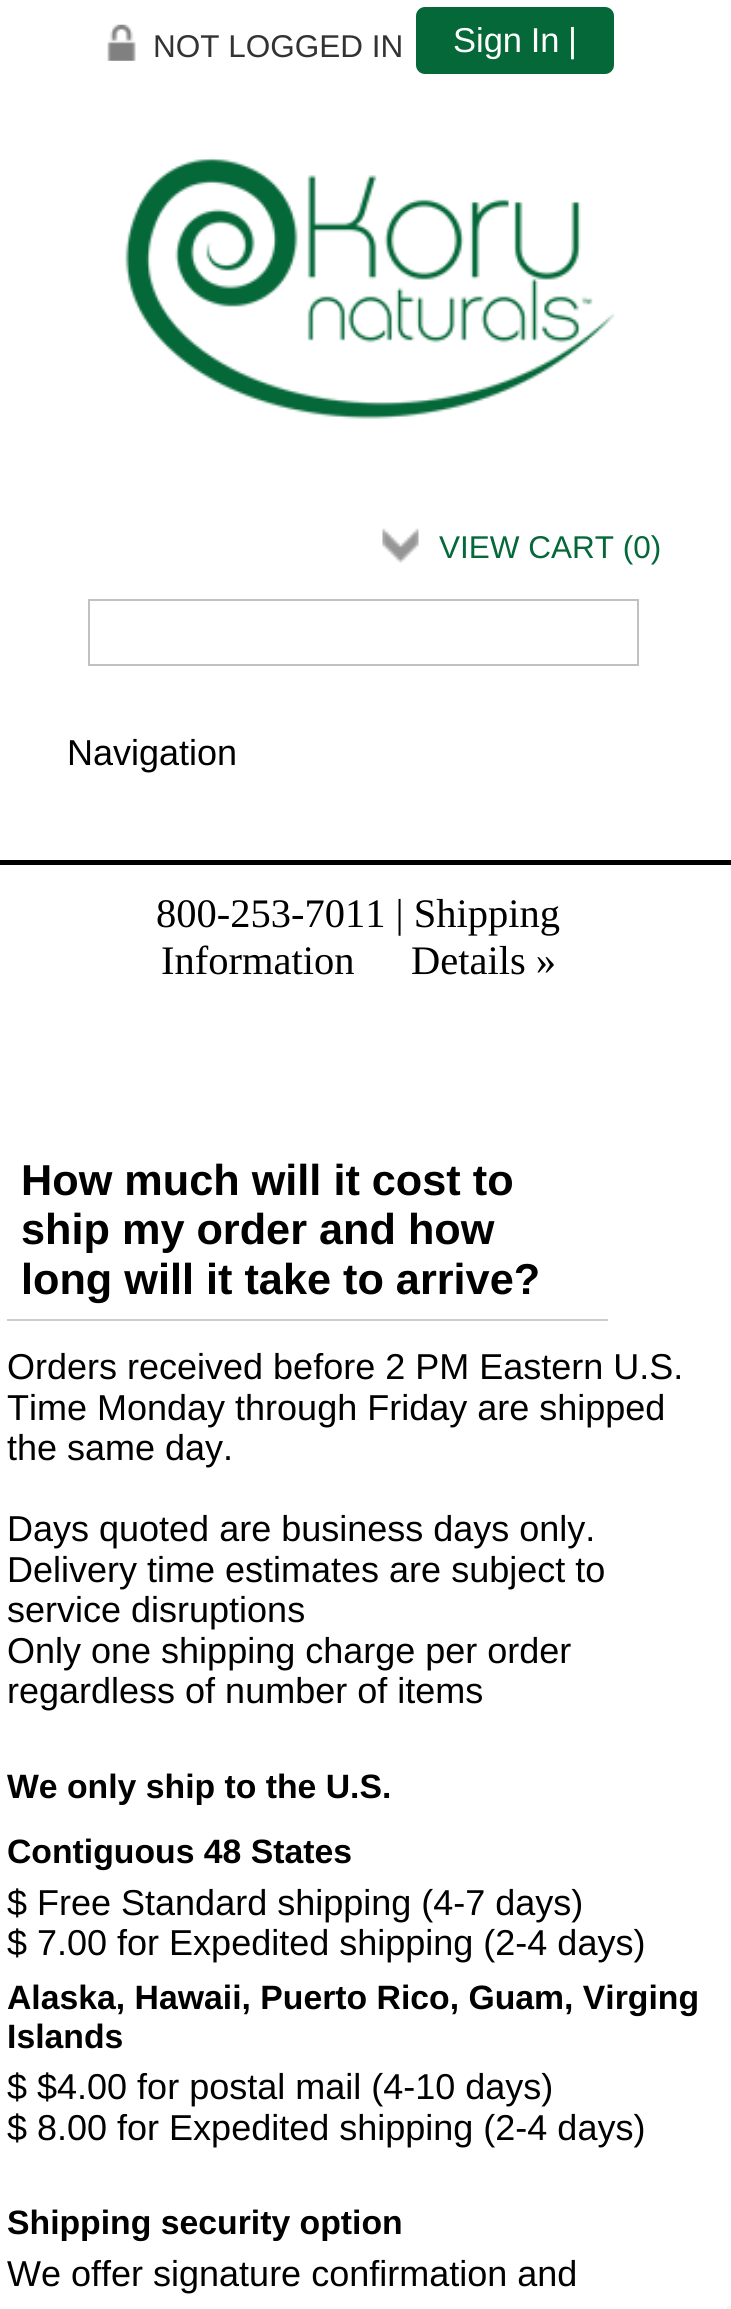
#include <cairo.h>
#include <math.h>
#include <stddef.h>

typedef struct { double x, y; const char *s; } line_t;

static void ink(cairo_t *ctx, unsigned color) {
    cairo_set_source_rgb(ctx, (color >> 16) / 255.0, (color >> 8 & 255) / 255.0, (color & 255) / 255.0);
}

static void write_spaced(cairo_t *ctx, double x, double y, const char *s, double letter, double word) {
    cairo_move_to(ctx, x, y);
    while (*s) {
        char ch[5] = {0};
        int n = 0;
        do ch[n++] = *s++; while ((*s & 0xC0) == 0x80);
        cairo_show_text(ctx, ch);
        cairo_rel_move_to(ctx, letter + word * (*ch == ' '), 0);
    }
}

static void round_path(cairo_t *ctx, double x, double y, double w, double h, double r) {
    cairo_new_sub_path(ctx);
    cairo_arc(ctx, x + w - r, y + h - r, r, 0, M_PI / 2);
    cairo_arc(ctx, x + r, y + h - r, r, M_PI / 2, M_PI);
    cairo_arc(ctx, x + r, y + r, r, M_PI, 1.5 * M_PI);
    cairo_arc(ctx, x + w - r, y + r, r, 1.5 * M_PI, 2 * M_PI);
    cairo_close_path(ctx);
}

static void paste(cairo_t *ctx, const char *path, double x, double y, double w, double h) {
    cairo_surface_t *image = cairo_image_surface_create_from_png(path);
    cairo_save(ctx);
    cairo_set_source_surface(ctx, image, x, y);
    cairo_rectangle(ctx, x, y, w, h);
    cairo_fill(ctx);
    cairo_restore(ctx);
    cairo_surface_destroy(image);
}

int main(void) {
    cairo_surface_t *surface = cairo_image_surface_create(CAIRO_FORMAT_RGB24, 731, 2309);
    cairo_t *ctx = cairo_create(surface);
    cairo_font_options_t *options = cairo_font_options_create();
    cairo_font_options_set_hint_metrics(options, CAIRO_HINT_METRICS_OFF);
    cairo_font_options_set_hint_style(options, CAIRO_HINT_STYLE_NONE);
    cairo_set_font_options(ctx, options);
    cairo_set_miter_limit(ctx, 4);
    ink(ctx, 0xFFFFFF);
    cairo_paint(ctx);
    paste(ctx, "media/1.png", 107, 24, 29, 37);
    cairo_select_font_face(ctx, "Liberation Sans", CAIRO_FONT_SLANT_NORMAL, CAIRO_FONT_WEIGHT_NORMAL);
    cairo_set_font_size(ctx, 31.5);
    ink(ctx, 0x333333);
    cairo_move_to(ctx, 153, 57);
    cairo_show_text(ctx, "NOT LOGGED IN");
    ink(ctx, 0x056839);
    round_path(ctx, 416, 7, 198, 67, 9);
    cairo_fill(ctx);
    cairo_set_font_size(ctx, 34.5);
    ink(ctx, 0xFFFFFF);
    write_spaced(ctx, 453, 52, "Sign In |", 0, -1);
    ink(ctx, 0x000000);
    cairo_rectangle(ctx, 0, 860, 731, 5);
    cairo_fill(ctx);
    paste(ctx, "media/2.png", 125, 157, 490, 262);
    paste(ctx, "media/3.png", 382, 528, 37, 35);
    cairo_set_font_size(ctx, 31.5);
    ink(ctx, 0x056839);
    cairo_move_to(ctx, 439, 558);
    cairo_show_text(ctx, "VIEW CART (0)");
    cairo_rectangle(ctx, 89, 600, 549, 65);
    ink(ctx, 0xC1C1C1);
    cairo_stroke(ctx);
    cairo_set_font_size(ctx, 36);
    ink(ctx, 0x000000);
    cairo_move_to(ctx, 67, 765);
    cairo_show_text(ctx, "Navigation");
    cairo_select_font_face(ctx, "Liberation Serif", CAIRO_FONT_SLANT_NORMAL, CAIRO_FONT_WEIGHT_NORMAL);
    cairo_set_font_size(ctx, 40.5);
    {
        static const line_t items[] = {
            {156, 927, "800-253-7011 | Shipping"},
            {161, 974, "Information"},
            {411, 974, "Details »"},
        };
        for (size_t i = 0; i < sizeof items / sizeof *items; i++) {
            cairo_move_to(ctx, items[i].x, items[i].y);
            cairo_show_text(ctx, items[i].s);
        }
    }
    ink(ctx, 0xCCCCCC);
    cairo_rectangle(ctx, 7, 1319, 601, 2);
    cairo_fill(ctx);
    cairo_select_font_face(ctx, "Liberation Sans", CAIRO_FONT_SLANT_NORMAL, CAIRO_FONT_WEIGHT_BOLD);
    cairo_set_font_size(ctx, 43.25);
    ink(ctx, 0x000000);
    {
        static const line_t items[] = {
            {21, 1195, "How much will it cost to"},
            {21, 1244, "ship my order and how"},
            {21, 1294, "long will it take to arrive?"},
        };
        for (size_t i = 0; i < sizeof items / sizeof *items; i++) {
            cairo_move_to(ctx, items[i].x, items[i].y);
            cairo_show_text(ctx, items[i].s);
        }
    }
    cairo_select_font_face(ctx, "Liberation Sans", CAIRO_FONT_SLANT_NORMAL, CAIRO_FONT_WEIGHT_NORMAL);
    cairo_set_font_size(ctx, 36);
    {
        static const line_t items[] = {
            {7, 1379, "Orders received before 2 PM Eastern U.S."},
            {7, 1420, "Time Monday through Friday are shipped"},
            {7, 1460, "the same day."},
            {7, 1541, "Days quoted are business days only."},
            {7, 1582, "Delivery time estimates are subject to"},
            {7, 1622, "service disruptions"},
            {7, 1663, "Only one shipping charge per order"},
            {7, 1703, "regardless of number of items"},
        };
        for (size_t i = 0; i < sizeof items / sizeof *items; i++) {
            cairo_move_to(ctx, items[i].x, items[i].y);
            cairo_show_text(ctx, items[i].s);
        }
    }
    cairo_select_font_face(ctx, "Liberation Sans", CAIRO_FONT_SLANT_NORMAL, CAIRO_FONT_WEIGHT_BOLD);
    cairo_set_font_size(ctx, 33.75);
    cairo_move_to(ctx, 7, 1798);
    cairo_show_text(ctx, "We only ship to the U.S.");
    cairo_move_to(ctx, 7, 1863);
    cairo_show_text(ctx, "Contiguous 48 States");
    cairo_select_font_face(ctx, "Liberation Sans", CAIRO_FONT_SLANT_NORMAL, CAIRO_FONT_WEIGHT_NORMAL);
    cairo_set_font_size(ctx, 36);
    cairo_move_to(ctx, 7, 1915);
    cairo_show_text(ctx, "$ Free Standard shipping (4-7 days)");
    cairo_move_to(ctx, 7, 1955);
    cairo_show_text(ctx, "$ 7.00 for Expedited shipping (2-4 days)");
    cairo_select_font_face(ctx, "Liberation Sans", CAIRO_FONT_SLANT_NORMAL, CAIRO_FONT_WEIGHT_BOLD);
    cairo_set_font_size(ctx, 33.75);
    cairo_move_to(ctx, 7, 2009);
    cairo_show_text(ctx, "Alaska, Hawaii, Puerto Rico, Guam, Virging");
    cairo_move_to(ctx, 7, 2048);
    cairo_show_text(ctx, "Islands");
    cairo_select_font_face(ctx, "Liberation Sans", CAIRO_FONT_SLANT_NORMAL, CAIRO_FONT_WEIGHT_NORMAL);
    cairo_set_font_size(ctx, 36);
    cairo_move_to(ctx, 7, 2099);
    cairo_show_text(ctx, "$ $4.00 for postal mail (4-10 days)");
    cairo_move_to(ctx, 7, 2140);
    cairo_show_text(ctx, "$ 8.00 for Expedited shipping (2-4 days)");
    cairo_select_font_face(ctx, "Liberation Sans", CAIRO_FONT_SLANT_NORMAL, CAIRO_FONT_WEIGHT_BOLD);
    cairo_set_font_size(ctx, 33.75);
    cairo_move_to(ctx, 7, 2234);
    cairo_show_text(ctx, "Shipping security option");
    cairo_select_font_face(ctx, "Liberation Sans", CAIRO_FONT_SLANT_NORMAL, CAIRO_FONT_WEIGHT_NORMAL);
    cairo_set_font_size(ctx, 36);
    cairo_move_to(ctx, 7, 2286);
    cairo_show_text(ctx, "We offer signature confirmation and");
    ink(ctx, 0xF5F5F5);
    cairo_rectangle(ctx, 727, 2306, 4, 3);
    cairo_fill(ctx);
    cairo_surface_write_to_png(surface, "image.png");
    cairo_font_options_destroy(options);
    cairo_destroy(ctx);
    cairo_surface_destroy(surface);
    return 0;
}
